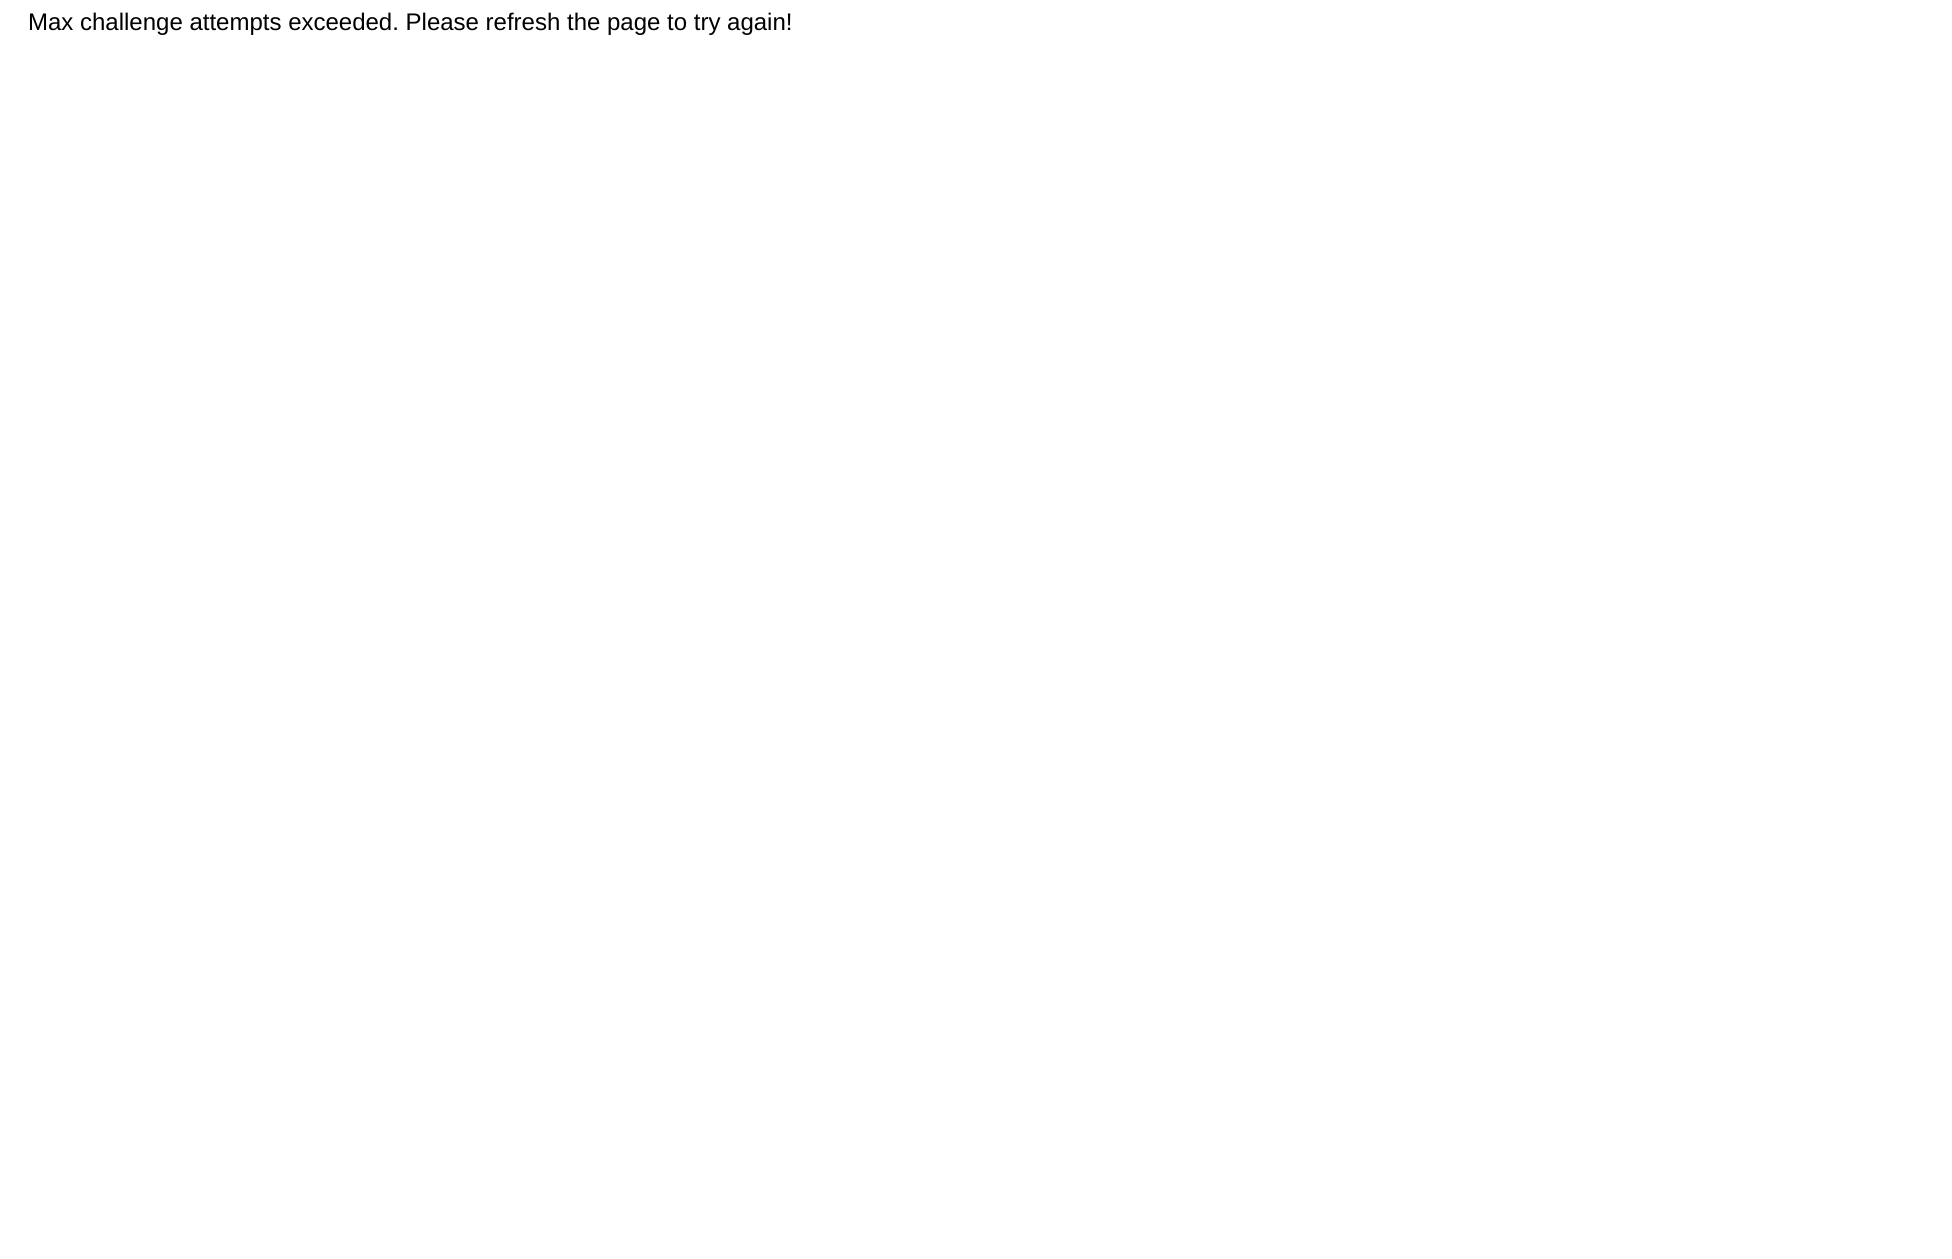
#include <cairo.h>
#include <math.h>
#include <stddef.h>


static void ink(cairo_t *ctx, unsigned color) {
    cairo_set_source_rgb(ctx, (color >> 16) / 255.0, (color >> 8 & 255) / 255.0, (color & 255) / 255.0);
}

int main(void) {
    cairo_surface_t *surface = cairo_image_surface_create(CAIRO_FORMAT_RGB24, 1952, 1259);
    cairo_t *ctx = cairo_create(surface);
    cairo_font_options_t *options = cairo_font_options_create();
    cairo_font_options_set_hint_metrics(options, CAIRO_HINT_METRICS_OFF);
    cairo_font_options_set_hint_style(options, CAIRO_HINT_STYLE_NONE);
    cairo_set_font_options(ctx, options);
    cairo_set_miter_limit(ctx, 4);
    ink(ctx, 0xFFFFFF);
    cairo_paint(ctx);
    cairo_select_font_face(ctx, "Liberation Sans", CAIRO_FONT_SLANT_NORMAL, CAIRO_FONT_WEIGHT_NORMAL);
    cairo_set_font_size(ctx, 24);
    ink(ctx, 0x000000);
    cairo_move_to(ctx, 28, 30);
    cairo_show_text(ctx, "Max challenge attempts exceeded. Please refresh the page to try again!");
    cairo_surface_write_to_png(surface, "image.png");
    cairo_font_options_destroy(options);
    cairo_destroy(ctx);
    cairo_surface_destroy(surface);
    return 0;
}
